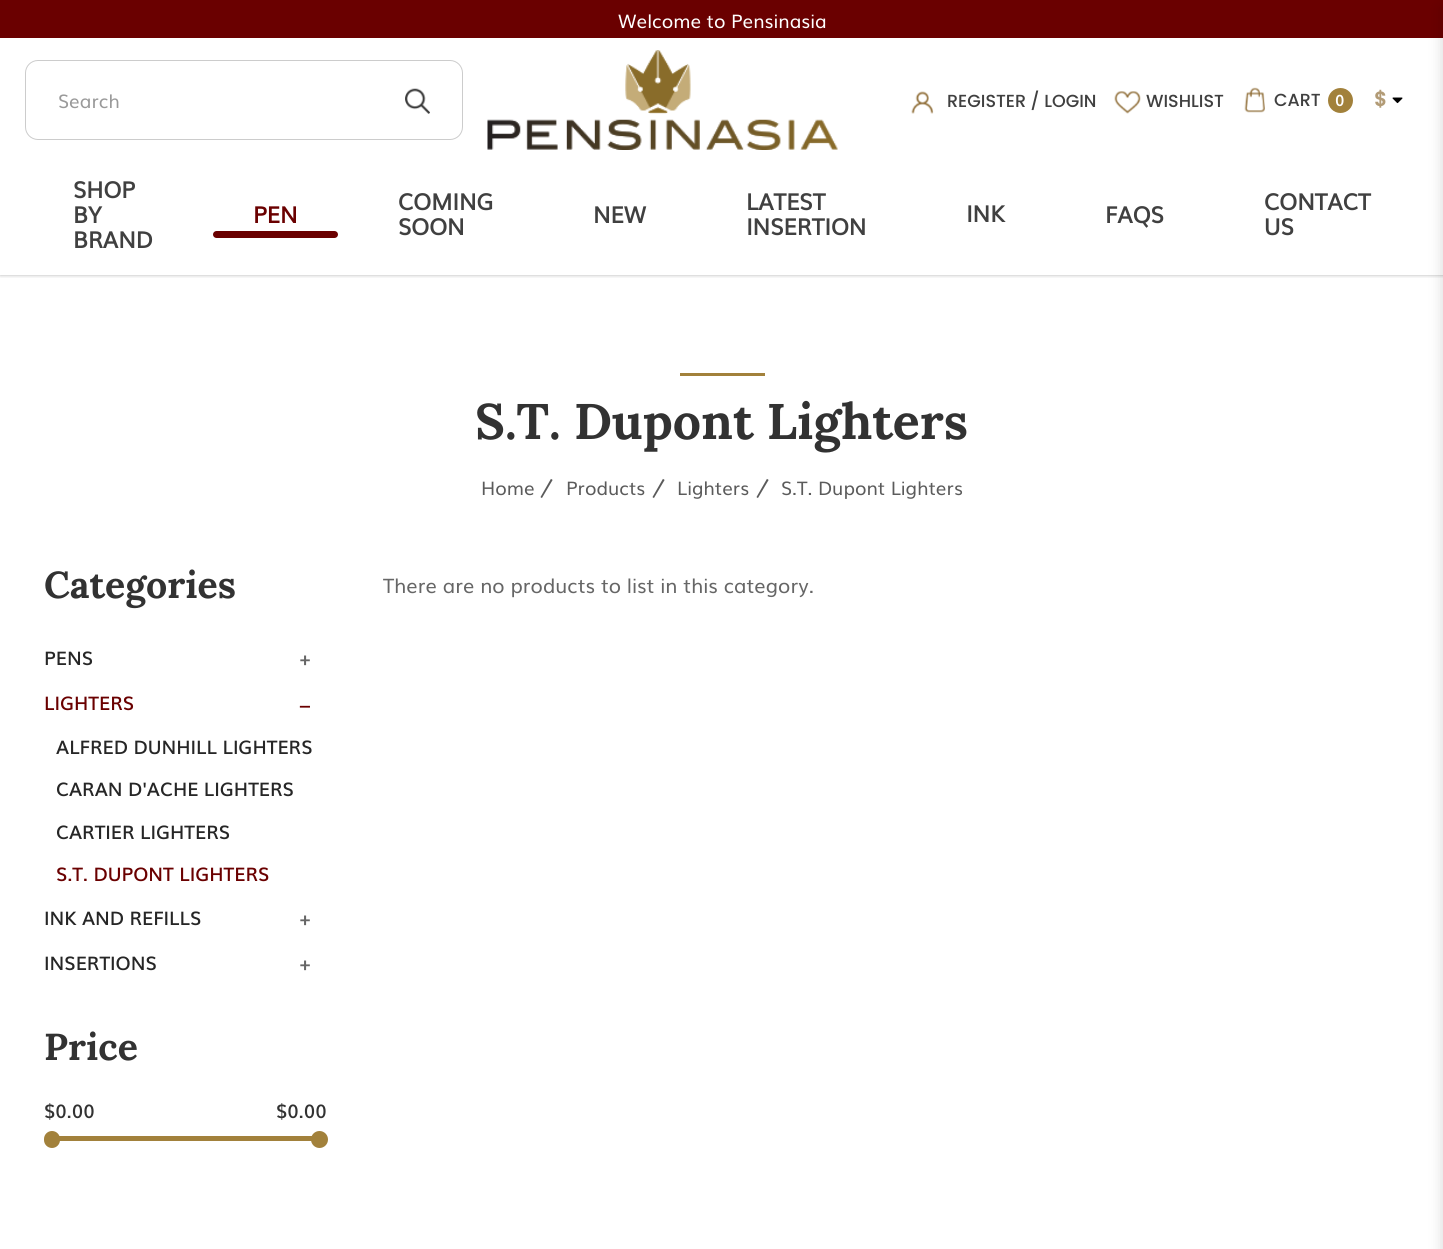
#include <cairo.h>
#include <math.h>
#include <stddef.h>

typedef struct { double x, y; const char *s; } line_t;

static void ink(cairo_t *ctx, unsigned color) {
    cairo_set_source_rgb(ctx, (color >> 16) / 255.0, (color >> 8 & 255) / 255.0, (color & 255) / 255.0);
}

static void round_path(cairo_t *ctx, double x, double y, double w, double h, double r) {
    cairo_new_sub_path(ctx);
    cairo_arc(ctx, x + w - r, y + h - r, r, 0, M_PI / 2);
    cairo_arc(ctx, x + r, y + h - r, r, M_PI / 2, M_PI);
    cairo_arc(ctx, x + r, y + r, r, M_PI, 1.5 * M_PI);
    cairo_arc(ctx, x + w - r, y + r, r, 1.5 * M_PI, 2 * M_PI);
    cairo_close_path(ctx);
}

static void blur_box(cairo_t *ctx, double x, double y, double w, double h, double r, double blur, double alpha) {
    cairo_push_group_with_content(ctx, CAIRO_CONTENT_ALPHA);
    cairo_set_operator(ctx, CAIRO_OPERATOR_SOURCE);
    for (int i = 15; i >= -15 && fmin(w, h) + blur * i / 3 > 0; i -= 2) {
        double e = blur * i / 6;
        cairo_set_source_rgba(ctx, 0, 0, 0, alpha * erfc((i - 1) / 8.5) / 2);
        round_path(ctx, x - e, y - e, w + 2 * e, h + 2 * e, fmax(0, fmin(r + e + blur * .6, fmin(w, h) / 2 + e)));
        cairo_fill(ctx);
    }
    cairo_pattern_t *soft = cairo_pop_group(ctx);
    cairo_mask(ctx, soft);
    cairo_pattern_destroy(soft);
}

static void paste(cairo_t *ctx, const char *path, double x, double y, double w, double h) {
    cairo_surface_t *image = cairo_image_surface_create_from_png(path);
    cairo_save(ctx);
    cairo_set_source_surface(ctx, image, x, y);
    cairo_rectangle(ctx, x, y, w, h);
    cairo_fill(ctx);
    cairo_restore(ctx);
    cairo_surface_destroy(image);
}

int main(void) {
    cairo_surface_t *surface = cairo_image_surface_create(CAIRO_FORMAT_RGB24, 1443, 1249);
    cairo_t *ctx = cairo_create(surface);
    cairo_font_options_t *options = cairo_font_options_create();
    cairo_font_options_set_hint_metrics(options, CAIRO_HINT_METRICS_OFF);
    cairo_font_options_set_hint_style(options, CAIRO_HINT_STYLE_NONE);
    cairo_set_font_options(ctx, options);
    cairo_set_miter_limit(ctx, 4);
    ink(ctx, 0xFFFFFF);
    cairo_paint(ctx);
    cairo_save(ctx);
    cairo_rectangle(ctx, 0, 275, 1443, 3);
    cairo_clip(ctx);
    ink(ctx, 0x000000);
    blur_box(ctx, 0, 0, 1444, 275, 0, 2, 0.3);
    cairo_restore(ctx);
    ink(ctx, 0x6A0000);
    cairo_rectangle(ctx, 0, 0, 1443, 38);
    cairo_fill(ctx);
    cairo_select_font_face(ctx, "Muli", CAIRO_FONT_SLANT_NORMAL, CAIRO_FONT_WEIGHT_NORMAL);
    cairo_set_font_size(ctx, 18.75);
    ink(ctx, 0xFFFFFF);
    cairo_move_to(ctx, 618, 28);
    cairo_show_text(ctx, "Welcome to Pensinasia");
    round_path(ctx, 25.5, 60.5, 437, 79, 12.5);
    ink(ctx, 0xCCCCCC);
    cairo_set_line_width(ctx, 1);
    cairo_stroke(ctx);
    ink(ctx, 0x999999);
    cairo_move_to(ctx, 58, 108);
    cairo_show_text(ctx, "Search");
    paste(ctx, "media/1.png", 405, 88, 25, 26);
    paste(ctx, "media/2.png", 487, 50, 351, 100);
    paste(ctx, "media/3.png", 911, 91, 23, 23);
    cairo_select_font_face(ctx, "Poppins Medium", CAIRO_FONT_SLANT_NORMAL, CAIRO_FONT_WEIGHT_NORMAL);
    cairo_set_font_size(ctx, 17.5);
    ink(ctx, 0x404040);
    cairo_move_to(ctx, 947, 107);
    cairo_show_text(ctx, "REGISTER / LOGIN");
    paste(ctx, "media/4.png", 1114, 91, 27, 23);
    cairo_move_to(ctx, 1146, 107);
    cairo_show_text(ctx, "WISHLIST");
    paste(ctx, "media/5.png", 1244, 87, 21, 26);
    cairo_move_to(ctx, 1274, 106);
    cairo_show_text(ctx, "CART");
    ink(ctx, 0xA2813B);
    cairo_new_path(ctx);
    cairo_arc(ctx, 1340.5, 100.5, 12.5, 0, 2 * M_PI);
    cairo_fill(ctx);
    cairo_select_font_face(ctx, "Muli", CAIRO_FONT_SLANT_NORMAL, CAIRO_FONT_WEIGHT_BOLD);
    cairo_set_font_size(ctx, 15);
    ink(ctx, 0xFFFFFF);
    cairo_move_to(ctx, 1335, 106);
    cairo_show_text(ctx, "0");
    ink(ctx, 0x000000);
    blur_box(ctx, 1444, 8, 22, 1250, 0, 7.5, 0.18);
    cairo_select_font_face(ctx, "Poppins", CAIRO_FONT_SLANT_NORMAL, CAIRO_FONT_WEIGHT_BOLD);
    cairo_set_font_size(ctx, 20);
    ink(ctx, 0xB29B76);
    cairo_move_to(ctx, 1374, 106);
    cairo_show_text(ctx, "$");
    paste(ctx, "media/6.png", 1392, 97, 11, 7);
    cairo_select_font_face(ctx, "Muli", CAIRO_FONT_SLANT_NORMAL, CAIRO_FONT_WEIGHT_BOLD);
    cairo_set_font_size(ctx, 22.5);
    ink(ctx, 0x404040);
    {
        static const line_t items[] = {
            {73, 198, "SHOP"},
            {73, 223, "BY"},
            {73, 248, "BRAND"},
        };
        for (size_t i = 0; i < sizeof items / sizeof *items; i++) {
            cairo_move_to(ctx, items[i].x, items[i].y);
            cairo_show_text(ctx, items[i].s);
        }
    }
    ink(ctx, 0x6A0000);
    cairo_move_to(ctx, 253, 223);
    cairo_show_text(ctx, "PEN");
    round_path(ctx, 213, 231, 125, 7, 3.5);
    cairo_fill(ctx);
    ink(ctx, 0x404040);
    {
        static const line_t items[] = {
            {398, 210, "COMING"},
            {398, 235, "SOON"},
            {593, 223, "NEW"},
            {746, 210, "LATEST"},
            {746, 235, "INSERTION"},
            {966, 222, "INK"},
            {1105, 223, "FAQS"},
            {1264, 210, "CONTACT"},
            {1264, 235, "US"},
        };
        for (size_t i = 0; i < sizeof items / sizeof *items; i++) {
            cairo_move_to(ctx, items[i].x, items[i].y);
            cairo_show_text(ctx, items[i].s);
        }
    }
    ink(ctx, 0xA2813B);
    cairo_rectangle(ctx, 680, 373, 85, 3);
    cairo_fill(ctx);
    cairo_select_font_face(ctx, "Lora", CAIRO_FONT_SLANT_NORMAL, CAIRO_FONT_WEIGHT_BOLD);
    cairo_set_font_size(ctx, 50);
    ink(ctx, 0x323232);
    cairo_move_to(ctx, 475, 439);
    cairo_show_text(ctx, "S.T. Dupont Lighters");
    cairo_select_font_face(ctx, "Muli", CAIRO_FONT_SLANT_NORMAL, CAIRO_FONT_WEIGHT_NORMAL);
    cairo_set_font_size(ctx, 18.75);
    ink(ctx, 0x5B5B5B);
    cairo_move_to(ctx, 481, 495);
    cairo_show_text(ctx, "Home");
    cairo_select_font_face(ctx, "Lora", CAIRO_FONT_SLANT_NORMAL, CAIRO_FONT_WEIGHT_BOLD);
    cairo_move_to(ctx, 540, 493);
    cairo_show_text(ctx, "/");
    cairo_select_font_face(ctx, "Muli", CAIRO_FONT_SLANT_NORMAL, CAIRO_FONT_WEIGHT_NORMAL);
    cairo_move_to(ctx, 566, 495);
    cairo_show_text(ctx, "Products");
    cairo_select_font_face(ctx, "Lora", CAIRO_FONT_SLANT_NORMAL, CAIRO_FONT_WEIGHT_BOLD);
    cairo_move_to(ctx, 652, 493);
    cairo_show_text(ctx, "/");
    cairo_select_font_face(ctx, "Muli", CAIRO_FONT_SLANT_NORMAL, CAIRO_FONT_WEIGHT_NORMAL);
    cairo_move_to(ctx, 677, 495);
    cairo_show_text(ctx, "Lighters");
    cairo_select_font_face(ctx, "Lora", CAIRO_FONT_SLANT_NORMAL, CAIRO_FONT_WEIGHT_BOLD);
    cairo_move_to(ctx, 756, 493);
    cairo_show_text(ctx, "/");
    cairo_select_font_face(ctx, "Muli", CAIRO_FONT_SLANT_NORMAL, CAIRO_FONT_WEIGHT_NORMAL);
    cairo_move_to(ctx, 781, 495);
    cairo_show_text(ctx, "S.T. Dupont Lighters");
    cairo_select_font_face(ctx, "Lora", CAIRO_FONT_SLANT_NORMAL, CAIRO_FONT_WEIGHT_BOLD);
    cairo_set_font_size(ctx, 37.5);
    ink(ctx, 0x323232);
    cairo_move_to(ctx, 44, 598);
    cairo_show_text(ctx, "Categories");
    cairo_select_font_face(ctx, "Muli SemiBold", CAIRO_FONT_SLANT_NORMAL, CAIRO_FONT_WEIGHT_NORMAL);
    cairo_set_font_size(ctx, 18.75);
    ink(ctx, 0x262626);
    cairo_move_to(ctx, 44, 665);
    cairo_show_text(ctx, "PENS");
    cairo_set_font_size(ctx, 20);
    ink(ctx, 0x666666);
    cairo_move_to(ctx, 299, 666);
    cairo_show_text(ctx, "+");
    cairo_set_font_size(ctx, 18.75);
    ink(ctx, 0x6A0000);
    cairo_move_to(ctx, 44, 710);
    cairo_show_text(ctx, "LIGHTERS");
    cairo_set_font_size(ctx, 20);
    cairo_move_to(ctx, 298, 711);
    cairo_show_text(ctx, "−");
    cairo_set_font_size(ctx, 18.75);
    ink(ctx, 0x262626);
    {
        static const line_t items[] = {
            {56, 754, "ALFRED DUNHILL LIGHTERS"},
            {56, 796, "CARAN D'ACHE LIGHTERS"},
            {56, 839, "CARTIER LIGHTERS"},
        };
        for (size_t i = 0; i < sizeof items / sizeof *items; i++) {
            cairo_move_to(ctx, items[i].x, items[i].y);
            cairo_show_text(ctx, items[i].s);
        }
    }
    ink(ctx, 0x6A0000);
    cairo_move_to(ctx, 56, 881);
    cairo_show_text(ctx, "S.T. DUPONT LIGHTERS");
    ink(ctx, 0x262626);
    cairo_move_to(ctx, 44, 925);
    cairo_show_text(ctx, "INK AND REFILLS");
    cairo_set_font_size(ctx, 20);
    ink(ctx, 0x666666);
    cairo_move_to(ctx, 299, 926);
    cairo_show_text(ctx, "+");
    cairo_set_font_size(ctx, 18.75);
    ink(ctx, 0x262626);
    cairo_move_to(ctx, 44, 970);
    cairo_show_text(ctx, "INSERTIONS");
    cairo_set_font_size(ctx, 20);
    ink(ctx, 0x666666);
    cairo_move_to(ctx, 299, 971);
    cairo_show_text(ctx, "+");
    cairo_select_font_face(ctx, "Lora", CAIRO_FONT_SLANT_NORMAL, CAIRO_FONT_WEIGHT_BOLD);
    cairo_set_font_size(ctx, 37.5);
    ink(ctx, 0x323232);
    cairo_move_to(ctx, 44, 1060);
    cairo_show_text(ctx, "Price");
    cairo_select_font_face(ctx, "Muli SemiBold", CAIRO_FONT_SLANT_NORMAL, CAIRO_FONT_WEIGHT_NORMAL);
    cairo_set_font_size(ctx, 18.75);
    cairo_move_to(ctx, 44, 1118);
    cairo_show_text(ctx, "$0.00");
    cairo_move_to(ctx, 276, 1118);
    cairo_show_text(ctx, "$0.00");
    ink(ctx, 0xA2813B);
    cairo_rectangle(ctx, 51, 1136, 268, 5);
    cairo_fill(ctx);
    round_path(ctx, 44, 1131, 16, 17, 8);
    cairo_fill(ctx);
    cairo_arc(ctx, 319.5, 1139.5, 8.5, 0, 2 * M_PI);
    cairo_fill(ctx);
    cairo_select_font_face(ctx, "Muli", CAIRO_FONT_SLANT_NORMAL, CAIRO_FONT_WEIGHT_NORMAL);
    cairo_set_font_size(ctx, 20);
    ink(ctx, 0x666666);
    cairo_move_to(ctx, 383, 593);
    cairo_show_text(ctx, "There are no products to list in this category.");
    cairo_surface_write_to_png(surface, "image.png");
    cairo_font_options_destroy(options);
    cairo_destroy(ctx);
    cairo_surface_destroy(surface);
    return 0;
}
